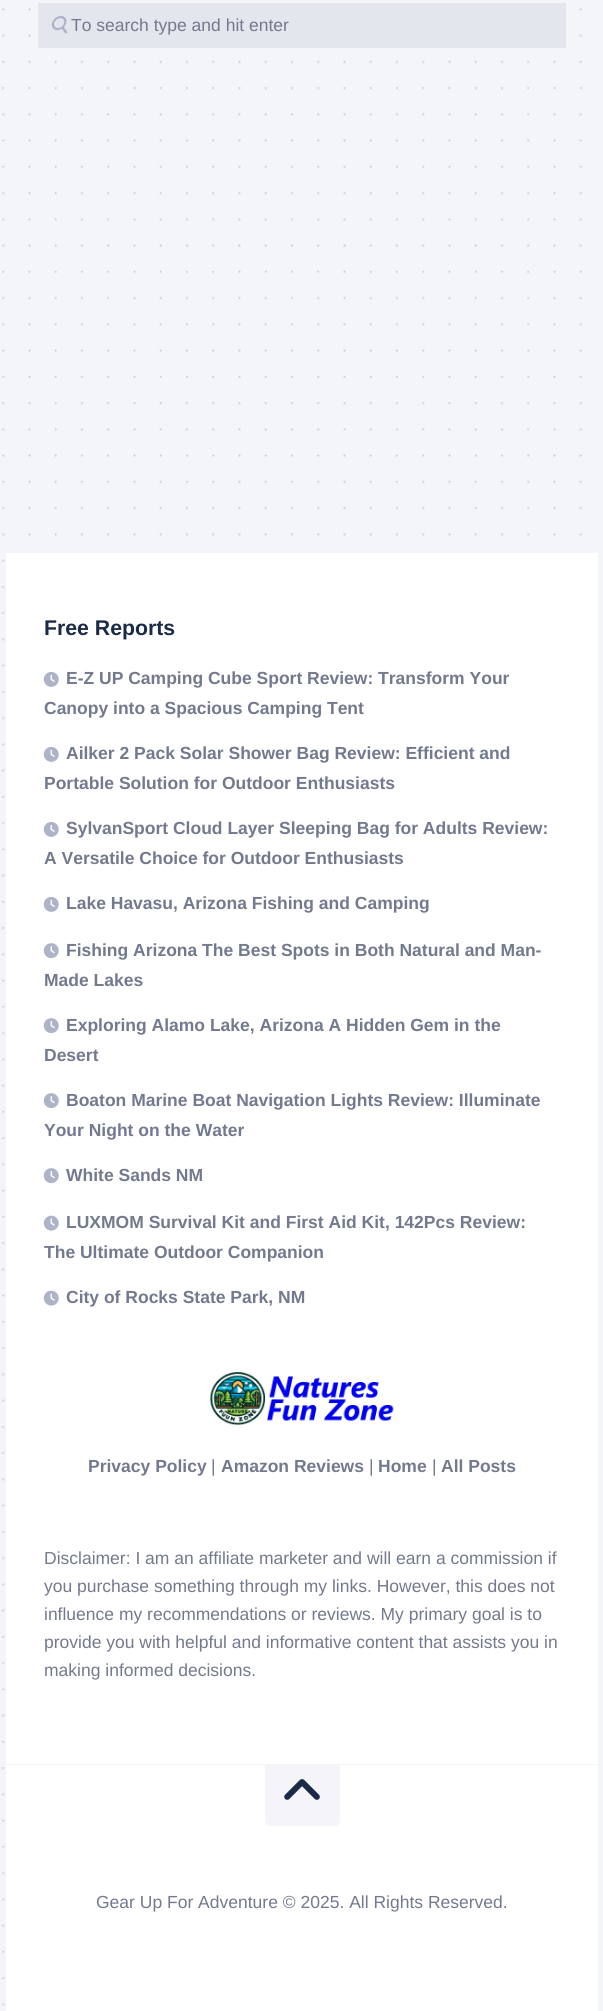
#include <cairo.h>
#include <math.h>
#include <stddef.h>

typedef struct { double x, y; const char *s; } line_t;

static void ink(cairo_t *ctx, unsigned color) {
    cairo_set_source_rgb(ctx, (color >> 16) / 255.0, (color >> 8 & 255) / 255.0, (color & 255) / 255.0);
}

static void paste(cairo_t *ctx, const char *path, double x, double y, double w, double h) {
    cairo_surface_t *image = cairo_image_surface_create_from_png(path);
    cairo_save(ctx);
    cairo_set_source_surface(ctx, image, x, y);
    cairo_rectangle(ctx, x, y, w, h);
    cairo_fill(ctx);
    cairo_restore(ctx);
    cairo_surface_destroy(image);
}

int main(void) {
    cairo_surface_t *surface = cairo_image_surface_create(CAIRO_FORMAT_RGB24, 603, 2011);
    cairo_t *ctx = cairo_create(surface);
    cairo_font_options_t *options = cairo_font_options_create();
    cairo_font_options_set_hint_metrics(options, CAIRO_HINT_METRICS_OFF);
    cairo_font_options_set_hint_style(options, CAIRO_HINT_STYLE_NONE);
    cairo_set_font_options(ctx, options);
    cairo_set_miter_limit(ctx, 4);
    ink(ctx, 0xF4F5F8);
    cairo_paint(ctx);
    paste(ctx, "media/1.png", 1, 8, 582, 1998);
    ink(ctx, 0xE4E6ED);
    cairo_rectangle(ctx, 38, 3, 528, 45);
    cairo_fill(ctx);
    paste(ctx, "media/2.png", 51, 16, 17, 18);
    cairo_select_font_face(ctx, "Liberation Sans", CAIRO_FONT_SLANT_NORMAL, CAIRO_FONT_WEIGHT_NORMAL);
    cairo_set_font_size(ctx, 17.5);
    ink(ctx, 0x73798E);
    cairo_move_to(ctx, 71, 31);
    cairo_show_text(ctx, "To search type and hit enter");
    ink(ctx, 0xFFFFFF);
    cairo_rectangle(ctx, 6, 553, 592, 1458);
    cairo_fill(ctx);
    cairo_select_font_face(ctx, "Liberation Sans", CAIRO_FONT_SLANT_NORMAL, CAIRO_FONT_WEIGHT_BOLD);
    cairo_set_font_size(ctx, 21.25);
    ink(ctx, 0x1B2B47);
    cairo_move_to(ctx, 44, 635);
    cairo_show_text(ctx, "Free Reports");
    paste(ctx, "media/3.png", 43, 671, 16, 16);
    cairo_set_font_size(ctx, 17.5);
    ink(ctx, 0x73798E);
    cairo_move_to(ctx, 66, 684);
    cairo_show_text(ctx, "E-Z UP Camping Cube Sport Review: Transform Your");
    cairo_move_to(ctx, 44, 714);
    cairo_show_text(ctx, "Canopy into a Spacious Camping Tent");
    paste(ctx, "media/3.png", 43, 746, 16, 16);
    cairo_move_to(ctx, 66, 759);
    cairo_show_text(ctx, "Ailker 2 Pack Solar Shower Bag Review: Efficient and");
    cairo_move_to(ctx, 44, 789);
    cairo_show_text(ctx, "Portable Solution for Outdoor Enthusiasts");
    paste(ctx, "media/3.png", 43, 821, 16, 16);
    cairo_move_to(ctx, 66, 834);
    cairo_show_text(ctx, "SylvanSport Cloud Layer Sleeping Bag for Adults Review:");
    cairo_move_to(ctx, 44, 864);
    cairo_show_text(ctx, "A Versatile Choice for Outdoor Enthusiasts");
    paste(ctx, "media/3.png", 43, 896, 16, 16);
    cairo_move_to(ctx, 66, 909);
    cairo_show_text(ctx, "Lake Havasu, Arizona Fishing and Camping");
    paste(ctx, "media/4.png", 43, 943, 16, 16);
    cairo_move_to(ctx, 66, 956);
    cairo_show_text(ctx, "Fishing Arizona The Best Spots in Both Natural and Man-");
    cairo_move_to(ctx, 44, 986);
    cairo_show_text(ctx, "Made Lakes");
    paste(ctx, "media/4.png", 43, 1018, 16, 16);
    cairo_move_to(ctx, 66, 1031);
    cairo_show_text(ctx, "Exploring Alamo Lake, Arizona A Hidden Gem in the");
    cairo_move_to(ctx, 44, 1061);
    cairo_show_text(ctx, "Desert");
    paste(ctx, "media/4.png", 43, 1093, 16, 16);
    cairo_move_to(ctx, 66, 1106);
    cairo_show_text(ctx, "Boaton Marine Boat Navigation Lights Review: Illuminate");
    cairo_move_to(ctx, 44, 1136);
    cairo_show_text(ctx, "Your Night on the Water");
    paste(ctx, "media/4.png", 43, 1168, 16, 16);
    cairo_move_to(ctx, 66, 1181);
    cairo_show_text(ctx, "White Sands NM");
    paste(ctx, "media/5.png", 43, 1215, 16, 16);
    cairo_move_to(ctx, 66, 1228);
    cairo_show_text(ctx, "LUXMOM Survival Kit and First Aid Kit, 142Pcs Review:");
    cairo_move_to(ctx, 44, 1258);
    cairo_show_text(ctx, "The Ultimate Outdoor Companion");
    paste(ctx, "media/5.png", 43, 1290, 16, 16);
    cairo_move_to(ctx, 66, 1303);
    cairo_show_text(ctx, "City of Rocks State Park, NM");
    paste(ctx, "media/6.png", 209, 1372, 185, 54);
    cairo_move_to(ctx, 88, 1472);
    cairo_show_text(ctx, "Privacy Policy");
    cairo_select_font_face(ctx, "Liberation Sans", CAIRO_FONT_SLANT_NORMAL, CAIRO_FONT_WEIGHT_NORMAL);
    cairo_move_to(ctx, 211, 1472);
    cairo_show_text(ctx, "|");
    cairo_select_font_face(ctx, "Liberation Sans", CAIRO_FONT_SLANT_NORMAL, CAIRO_FONT_WEIGHT_BOLD);
    cairo_move_to(ctx, 221, 1472);
    cairo_show_text(ctx, "Amazon Reviews");
    cairo_select_font_face(ctx, "Liberation Sans", CAIRO_FONT_SLANT_NORMAL, CAIRO_FONT_WEIGHT_NORMAL);
    cairo_move_to(ctx, 369, 1472);
    cairo_show_text(ctx, "|");
    cairo_select_font_face(ctx, "Liberation Sans", CAIRO_FONT_SLANT_NORMAL, CAIRO_FONT_WEIGHT_BOLD);
    cairo_move_to(ctx, 378, 1472);
    cairo_show_text(ctx, "Home");
    cairo_select_font_face(ctx, "Liberation Sans", CAIRO_FONT_SLANT_NORMAL, CAIRO_FONT_WEIGHT_NORMAL);
    cairo_move_to(ctx, 432, 1472);
    cairo_show_text(ctx, "|");
    cairo_select_font_face(ctx, "Liberation Sans", CAIRO_FONT_SLANT_NORMAL, CAIRO_FONT_WEIGHT_BOLD);
    cairo_move_to(ctx, 441, 1472);
    cairo_show_text(ctx, "All Posts");
    cairo_select_font_face(ctx, "Liberation Sans", CAIRO_FONT_SLANT_NORMAL, CAIRO_FONT_WEIGHT_NORMAL);
    {
        static const line_t items[] = {
            {44, 1564, "Disclaimer: I am an affiliate marketer and will earn a commission if"},
            {44, 1592, "you purchase something through my links. However, this does not"},
            {44, 1620, "influence my recommendations or reviews. My primary goal is to"},
            {44, 1648, "provide you with helpful and informative content that assists you in"},
            {44, 1676, "making informed decisions."},
        };
        for (size_t i = 0; i < sizeof items / sizeof *items; i++) {
            cairo_move_to(ctx, items[i].x, items[i].y);
            cairo_show_text(ctx, items[i].s);
        }
    }
    ink(ctx, 0xF4F5F8);
    cairo_rectangle(ctx, 6, 1764, 592, 1);
    cairo_fill(ctx);
    ink(ctx, 0xF5F5F9);
    cairo_new_path(ctx);
    cairo_move_to(ctx, 265, 1765);
    cairo_line_to(ctx, 340, 1765);
    cairo_line_to(ctx, 340, 1821);
    cairo_curve_to(ctx, 340, 1824, 338, 1826, 335, 1826);
    cairo_line_to(ctx, 270, 1826);
    cairo_curve_to(ctx, 267, 1826, 265, 1824, 265, 1821);
    cairo_close_path(ctx);
    cairo_fill(ctx);
    paste(ctx, "media/7.png", 284, 1779, 36, 21);
    ink(ctx, 0x73798E);
    cairo_move_to(ctx, 96, 1908);
    cairo_show_text(ctx, "Gear Up For Adventure © 2025. All Rights Reserved.");
    cairo_surface_write_to_png(surface, "image.png");
    cairo_font_options_destroy(options);
    cairo_destroy(ctx);
    cairo_surface_destroy(surface);
    return 0;
}
